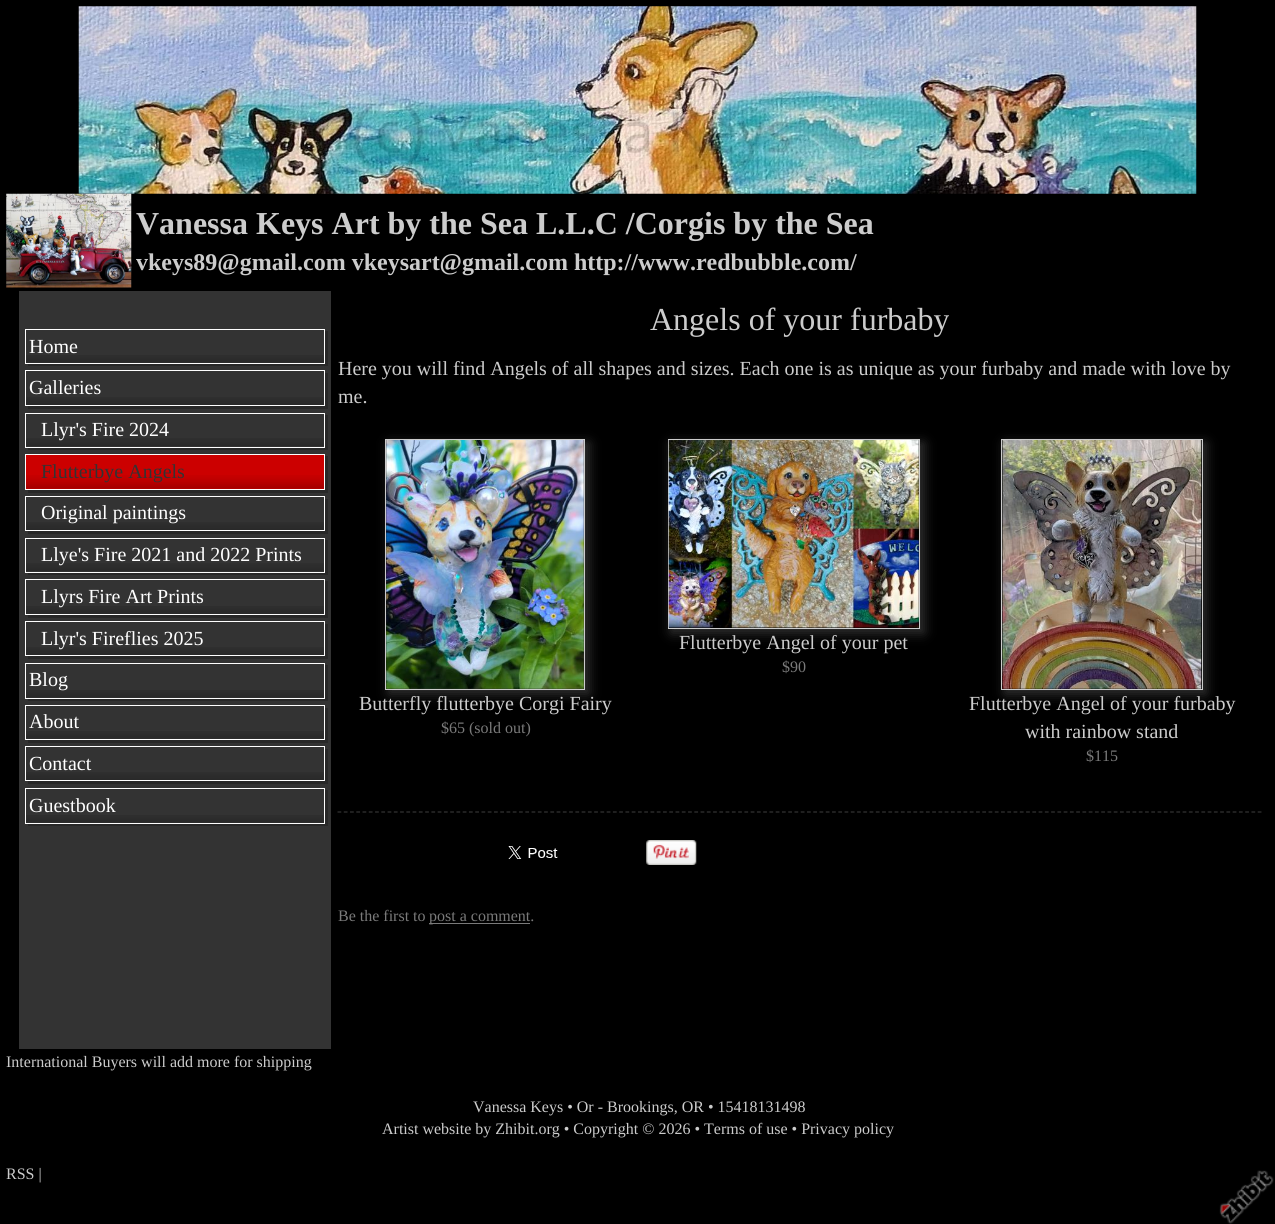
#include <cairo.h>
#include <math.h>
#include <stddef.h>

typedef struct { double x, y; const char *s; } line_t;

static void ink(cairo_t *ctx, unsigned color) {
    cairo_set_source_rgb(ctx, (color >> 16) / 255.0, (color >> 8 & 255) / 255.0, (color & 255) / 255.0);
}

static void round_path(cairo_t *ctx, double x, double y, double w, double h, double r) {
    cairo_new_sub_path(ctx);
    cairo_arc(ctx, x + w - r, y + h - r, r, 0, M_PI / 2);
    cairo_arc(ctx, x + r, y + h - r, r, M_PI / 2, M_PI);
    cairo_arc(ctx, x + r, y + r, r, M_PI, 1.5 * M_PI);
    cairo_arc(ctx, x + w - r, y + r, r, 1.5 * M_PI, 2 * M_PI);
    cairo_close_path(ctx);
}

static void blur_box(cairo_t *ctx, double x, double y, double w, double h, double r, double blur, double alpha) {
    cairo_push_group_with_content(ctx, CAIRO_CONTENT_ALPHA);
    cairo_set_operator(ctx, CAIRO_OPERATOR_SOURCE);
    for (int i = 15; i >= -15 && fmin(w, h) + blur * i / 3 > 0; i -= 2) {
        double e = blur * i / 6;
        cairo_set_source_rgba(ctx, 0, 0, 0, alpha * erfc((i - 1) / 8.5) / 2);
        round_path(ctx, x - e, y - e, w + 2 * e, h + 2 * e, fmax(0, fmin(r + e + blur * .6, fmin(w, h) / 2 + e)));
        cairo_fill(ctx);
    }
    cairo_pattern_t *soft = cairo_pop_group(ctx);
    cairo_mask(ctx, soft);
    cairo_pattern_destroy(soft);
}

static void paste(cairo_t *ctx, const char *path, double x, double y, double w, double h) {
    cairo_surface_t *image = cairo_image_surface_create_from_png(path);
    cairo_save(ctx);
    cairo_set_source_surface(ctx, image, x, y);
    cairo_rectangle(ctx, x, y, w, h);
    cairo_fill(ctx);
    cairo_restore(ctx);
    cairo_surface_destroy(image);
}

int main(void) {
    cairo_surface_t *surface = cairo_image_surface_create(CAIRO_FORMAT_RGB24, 1275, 1224);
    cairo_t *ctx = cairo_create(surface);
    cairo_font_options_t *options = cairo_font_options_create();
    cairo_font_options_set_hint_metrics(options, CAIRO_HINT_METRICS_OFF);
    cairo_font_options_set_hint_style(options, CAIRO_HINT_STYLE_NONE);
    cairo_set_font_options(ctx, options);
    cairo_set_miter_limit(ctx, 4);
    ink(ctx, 0x000000);
    cairo_paint(ctx);
    paste(ctx, "media/1.png", 78, 6, 1119, 188);
    paste(ctx, "media/2.png", 6, 193, 126, 95);
    cairo_select_font_face(ctx, "Liberation Serif", CAIRO_FONT_SLANT_NORMAL, CAIRO_FONT_WEIGHT_BOLD);
    cairo_set_font_size(ctx, 32);
    ink(ctx, 0xCCCCCC);
    cairo_move_to(ctx, 136, 234);
    cairo_show_text(ctx, "Vanessa Keys Art by the Sea L.L.C /Corgis by the Sea");
    cairo_set_font_size(ctx, 24);
    cairo_move_to(ctx, 136, 270);
    cairo_show_text(ctx, "vkeys89@gmail.com vkeysart@gmail.com http://www.redbubble.com/");
    ink(ctx, 0x333333);
    cairo_rectangle(ctx, 19, 291, 312, 758);
    cairo_fill(ctx);
    ink(ctx, 0x282828);
    cairo_new_path(ctx);
    cairo_move_to(ctx, 28, 364);
    cairo_line_to(ctx, 28, 366);
    cairo_line_to(ctx, 328, 366);
    cairo_line_to(ctx, 328, 331);
    cairo_line_to(ctx, 325, 331);
    cairo_line_to(ctx, 325, 364);
    cairo_close_path(ctx);
    cairo_fill(ctx);
    paste(ctx, "media/3.png", 26, 355, 298, 8);
    cairo_rectangle(ctx, 25.5, 329.5, 299, 34);
    ink(ctx, 0xFFFFFF);
    cairo_set_line_width(ctx, 1);
    cairo_stroke(ctx);
    cairo_select_font_face(ctx, "Liberation Serif", CAIRO_FONT_SLANT_NORMAL, CAIRO_FONT_WEIGHT_NORMAL);
    cairo_set_font_size(ctx, 20);
    cairo_move_to(ctx, 29, 353);
    cairo_show_text(ctx, "Home");
    ink(ctx, 0x282828);
    cairo_new_path(ctx);
    cairo_move_to(ctx, 28, 406);
    cairo_line_to(ctx, 28, 409);
    cairo_line_to(ctx, 328, 409);
    cairo_line_to(ctx, 328, 373);
    cairo_line_to(ctx, 325, 373);
    cairo_line_to(ctx, 325, 406);
    cairo_close_path(ctx);
    cairo_fill(ctx);
    paste(ctx, "media/4.png", 26, 397, 298, 8);
    cairo_rectangle(ctx, 25.5, 370.5, 299, 35);
    ink(ctx, 0xFFFFFF);
    cairo_stroke(ctx);
    cairo_move_to(ctx, 29, 394);
    cairo_show_text(ctx, "Galleries");
    ink(ctx, 0x282828);
    cairo_new_path(ctx);
    cairo_move_to(ctx, 28, 448);
    cairo_line_to(ctx, 28, 450);
    cairo_line_to(ctx, 328, 450);
    cairo_line_to(ctx, 328, 415);
    cairo_line_to(ctx, 325, 415);
    cairo_line_to(ctx, 325, 448);
    cairo_close_path(ctx);
    cairo_fill(ctx);
    paste(ctx, "media/5.png", 26, 438, 298, 8);
    cairo_rectangle(ctx, 25.5, 413.5, 299, 34);
    ink(ctx, 0xFFFFFF);
    cairo_stroke(ctx);
    cairo_move_to(ctx, 41, 436);
    cairo_show_text(ctx, "Llyr's Fire 2024");
    ink(ctx, 0x282828);
    cairo_new_path(ctx);
    cairo_move_to(ctx, 28, 490);
    cairo_line_to(ctx, 28, 493);
    cairo_line_to(ctx, 328, 493);
    cairo_line_to(ctx, 328, 456);
    cairo_line_to(ctx, 325, 456);
    cairo_line_to(ctx, 325, 490);
    cairo_close_path(ctx);
    cairo_fill(ctx);
    ink(ctx, 0xCC0000);
    cairo_rectangle(ctx, 26, 455, 298, 34);
    cairo_fill(ctx);
    paste(ctx, "media/6.png", 26, 475, 298, 14);
    cairo_rectangle(ctx, 25.5, 454.5, 299, 35);
    ink(ctx, 0xFFFFFF);
    cairo_stroke(ctx);
    ink(ctx, 0x333333);
    cairo_move_to(ctx, 41, 478);
    cairo_show_text(ctx, "Flutterbye Angels");
    ink(ctx, 0x282828);
    cairo_new_path(ctx);
    cairo_move_to(ctx, 28, 531);
    cairo_line_to(ctx, 28, 534);
    cairo_line_to(ctx, 328, 534);
    cairo_line_to(ctx, 328, 499);
    cairo_line_to(ctx, 325, 499);
    cairo_line_to(ctx, 325, 531);
    cairo_close_path(ctx);
    cairo_fill(ctx);
    paste(ctx, "media/7.png", 26, 522, 298, 8);
    cairo_rectangle(ctx, 25.5, 496.5, 299, 34);
    ink(ctx, 0xFFFFFF);
    cairo_stroke(ctx);
    cairo_move_to(ctx, 41, 519);
    cairo_show_text(ctx, "Original paintings");
    ink(ctx, 0x282828);
    cairo_new_path(ctx);
    cairo_move_to(ctx, 28, 572);
    cairo_line_to(ctx, 28, 575);
    cairo_line_to(ctx, 328, 575);
    cairo_line_to(ctx, 328, 540);
    cairo_line_to(ctx, 325, 540);
    cairo_line_to(ctx, 325, 572);
    cairo_close_path(ctx);
    cairo_fill(ctx);
    paste(ctx, "media/8.png", 26, 563, 298, 8);
    cairo_rectangle(ctx, 25.5, 538.5, 299, 34);
    ink(ctx, 0xFFFFFF);
    cairo_stroke(ctx);
    cairo_move_to(ctx, 41, 561);
    cairo_show_text(ctx, "Llye's Fire 2021 and 2022 Prints");
    ink(ctx, 0x282828);
    cairo_new_path(ctx);
    cairo_move_to(ctx, 28, 615);
    cairo_line_to(ctx, 28, 618);
    cairo_line_to(ctx, 328, 618);
    cairo_line_to(ctx, 328, 581);
    cairo_line_to(ctx, 325, 581);
    cairo_line_to(ctx, 325, 615);
    cairo_close_path(ctx);
    cairo_fill(ctx);
    paste(ctx, "media/9.png", 26, 606, 298, 8);
    cairo_rectangle(ctx, 25.5, 579.5, 299, 35);
    ink(ctx, 0xFFFFFF);
    cairo_stroke(ctx);
    cairo_move_to(ctx, 41, 603);
    cairo_show_text(ctx, "Llyrs Fire Art Prints");
    ink(ctx, 0x282828);
    cairo_new_path(ctx);
    cairo_move_to(ctx, 28, 656);
    cairo_line_to(ctx, 28, 659);
    cairo_line_to(ctx, 328, 659);
    cairo_line_to(ctx, 328, 624);
    cairo_line_to(ctx, 325, 624);
    cairo_line_to(ctx, 325, 656);
    cairo_close_path(ctx);
    cairo_fill(ctx);
    paste(ctx, "media/10.png", 26, 647, 298, 8);
    cairo_rectangle(ctx, 25.5, 621.5, 299, 34);
    ink(ctx, 0xFFFFFF);
    cairo_stroke(ctx);
    cairo_move_to(ctx, 41, 645);
    cairo_show_text(ctx, "Llyr's Fireflies 2025");
    ink(ctx, 0x282828);
    cairo_new_path(ctx);
    cairo_move_to(ctx, 28, 699);
    cairo_line_to(ctx, 28, 701);
    cairo_line_to(ctx, 328, 701);
    cairo_line_to(ctx, 328, 665);
    cairo_line_to(ctx, 325, 665);
    cairo_line_to(ctx, 325, 699);
    cairo_close_path(ctx);
    cairo_fill(ctx);
    paste(ctx, "media/3.png", 26, 690, 298, 8);
    cairo_rectangle(ctx, 25.5, 663.5, 299, 35);
    ink(ctx, 0xFFFFFF);
    cairo_stroke(ctx);
    cairo_move_to(ctx, 29, 686);
    cairo_show_text(ctx, "Blog");
    ink(ctx, 0x282828);
    cairo_new_path(ctx);
    cairo_move_to(ctx, 28, 740);
    cairo_line_to(ctx, 28, 743);
    cairo_line_to(ctx, 328, 743);
    cairo_line_to(ctx, 328, 708);
    cairo_line_to(ctx, 325, 708);
    cairo_line_to(ctx, 325, 740);
    cairo_close_path(ctx);
    cairo_fill(ctx);
    paste(ctx, "media/11.png", 26, 731, 298, 8);
    cairo_rectangle(ctx, 25.5, 705.5, 299, 34);
    ink(ctx, 0xFFFFFF);
    cairo_stroke(ctx);
    cairo_move_to(ctx, 29, 728);
    cairo_show_text(ctx, "About");
    ink(ctx, 0x282828);
    cairo_new_path(ctx);
    cairo_move_to(ctx, 28, 781);
    cairo_line_to(ctx, 28, 784);
    cairo_line_to(ctx, 328, 784);
    cairo_line_to(ctx, 328, 749);
    cairo_line_to(ctx, 325, 749);
    cairo_line_to(ctx, 325, 781);
    cairo_close_path(ctx);
    cairo_fill(ctx);
    paste(ctx, "media/10.png", 26, 772, 298, 8);
    cairo_rectangle(ctx, 25.5, 746.5, 299, 34);
    ink(ctx, 0xFFFFFF);
    cairo_stroke(ctx);
    cairo_move_to(ctx, 29, 770);
    cairo_show_text(ctx, "Contact");
    ink(ctx, 0x282828);
    cairo_new_path(ctx);
    cairo_move_to(ctx, 28, 824);
    cairo_line_to(ctx, 28, 826);
    cairo_line_to(ctx, 328, 826);
    cairo_line_to(ctx, 328, 790);
    cairo_line_to(ctx, 325, 790);
    cairo_line_to(ctx, 325, 824);
    cairo_close_path(ctx);
    cairo_fill(ctx);
    paste(ctx, "media/3.png", 26, 815, 298, 8);
    cairo_rectangle(ctx, 25.5, 788.5, 299, 35);
    ink(ctx, 0xFFFFFF);
    cairo_stroke(ctx);
    cairo_move_to(ctx, 29, 812);
    cairo_show_text(ctx, "Guestbook");
    cairo_set_font_size(ctx, 32);
    ink(ctx, 0xCCCCCC);
    cairo_move_to(ctx, 650, 330);
    cairo_show_text(ctx, "Angels of your furbaby");
    cairo_set_font_size(ctx, 20);
    cairo_move_to(ctx, 338, 375);
    cairo_show_text(ctx, "Here you will find Angels of all shapes and sizes. Each one is as unique as your furbaby and made with love by");
    cairo_move_to(ctx, 338, 403);
    cairo_show_text(ctx, "me.");
    ink(ctx, 0x333333);
    blur_box(ctx, 671, 443, 253, 190, 0, 6, 1);
    ink(ctx, 0x000000);
    cairo_rectangle(ctx, 668.5, 439.5, 251, 189);
    cairo_fill_preserve(ctx);
    ink(ctx, 0xCCCCCC);
    cairo_stroke(ctx);
    paste(ctx, "media/12.png", 668, 440, 251, 188);
    cairo_move_to(ctx, 679, 649);
    cairo_show_text(ctx, "Flutterbye Angel of your pet");
    cairo_set_font_size(ctx, 16);
    ink(ctx, 0x7A7A7A);
    cairo_move_to(ctx, 782, 672);
    cairo_show_text(ctx, "$90");
    ink(ctx, 0x333333);
    blur_box(ctx, 389, 443, 200, 251, 0, 6, 1);
    cairo_rectangle(ctx, 385.5, 439.5, 199, 250);
    ink(ctx, 0xCCCCCC);
    cairo_stroke(ctx);
    paste(ctx, "media/13.png", 386, 440, 198, 249);
    cairo_set_font_size(ctx, 20);
    cairo_move_to(ctx, 359, 710);
    cairo_show_text(ctx, "Butterfly flutterbye Corgi Fairy");
    cairo_set_font_size(ctx, 16);
    ink(ctx, 0x7A7A7A);
    cairo_move_to(ctx, 441, 733);
    cairo_show_text(ctx, "$65 (sold out)");
    ink(ctx, 0x333333);
    blur_box(ctx, 1005, 443, 201, 251, 0, 6, 1);
    ink(ctx, 0x000000);
    cairo_rectangle(ctx, 1001.5, 439.5, 201, 250);
    cairo_fill_preserve(ctx);
    ink(ctx, 0xCCCCCC);
    cairo_stroke(ctx);
    paste(ctx, "media/14.png", 1002, 440, 200, 249);
    cairo_set_font_size(ctx, 20);
    cairo_move_to(ctx, 969, 710);
    cairo_show_text(ctx, "Flutterbye Angel of your furbaby");
    cairo_move_to(ctx, 1025, 738);
    cairo_show_text(ctx, "with rainbow stand");
    cairo_set_font_size(ctx, 16);
    ink(ctx, 0x7A7A7A);
    cairo_move_to(ctx, 1086, 761);
    cairo_show_text(ctx, "$115");
    cairo_new_path(ctx);
    cairo_move_to(ctx, 337.5, 812);
    cairo_line_to(ctx, 1262.5, 812);
    ink(ctx, 0x333333);
    cairo_set_line_width(ctx, 1.2);
    cairo_set_dash(ctx, (double[]){3.75, 2.51}, 2, 0);
    cairo_stroke(ctx);
    paste(ctx, "media/15.png", 508, 846, 50, 13);
    paste(ctx, "media/16.png", 646, 840, 51, 25);
    ink(ctx, 0x7A7A7A);
    cairo_move_to(ctx, 338, 921);
    cairo_show_text(ctx, "Be the first to");
    cairo_rectangle(ctx, 429, 923, 101, 1);
    cairo_fill(ctx);
    cairo_move_to(ctx, 429, 921);
    cairo_show_text(ctx, "post a comment.");
    ink(ctx, 0xCCCCCC);
    {
        static const line_t items[] = {
            {6, 1067, "International Buyers will add more for shipping"},
            {473, 1112, "Vanessa Keys • Or - Brookings, OR • 15418131498"},
            {382, 1134, "Artist website by Zhibit.org • Copyright © 2026 • Terms of use • Privacy policy"},
            {6, 1179, "RSS |"},
        };
        for (size_t i = 0; i < sizeof items / sizeof *items; i++) {
            cairo_move_to(ctx, items[i].x, items[i].y);
            cairo_show_text(ctx, items[i].s);
        }
    }
    paste(ctx, "media/17.png", 1219, 1170, 55, 54);
    cairo_surface_write_to_png(surface, "image.png");
    cairo_font_options_destroy(options);
    cairo_destroy(ctx);
    cairo_surface_destroy(surface);
    return 0;
}
